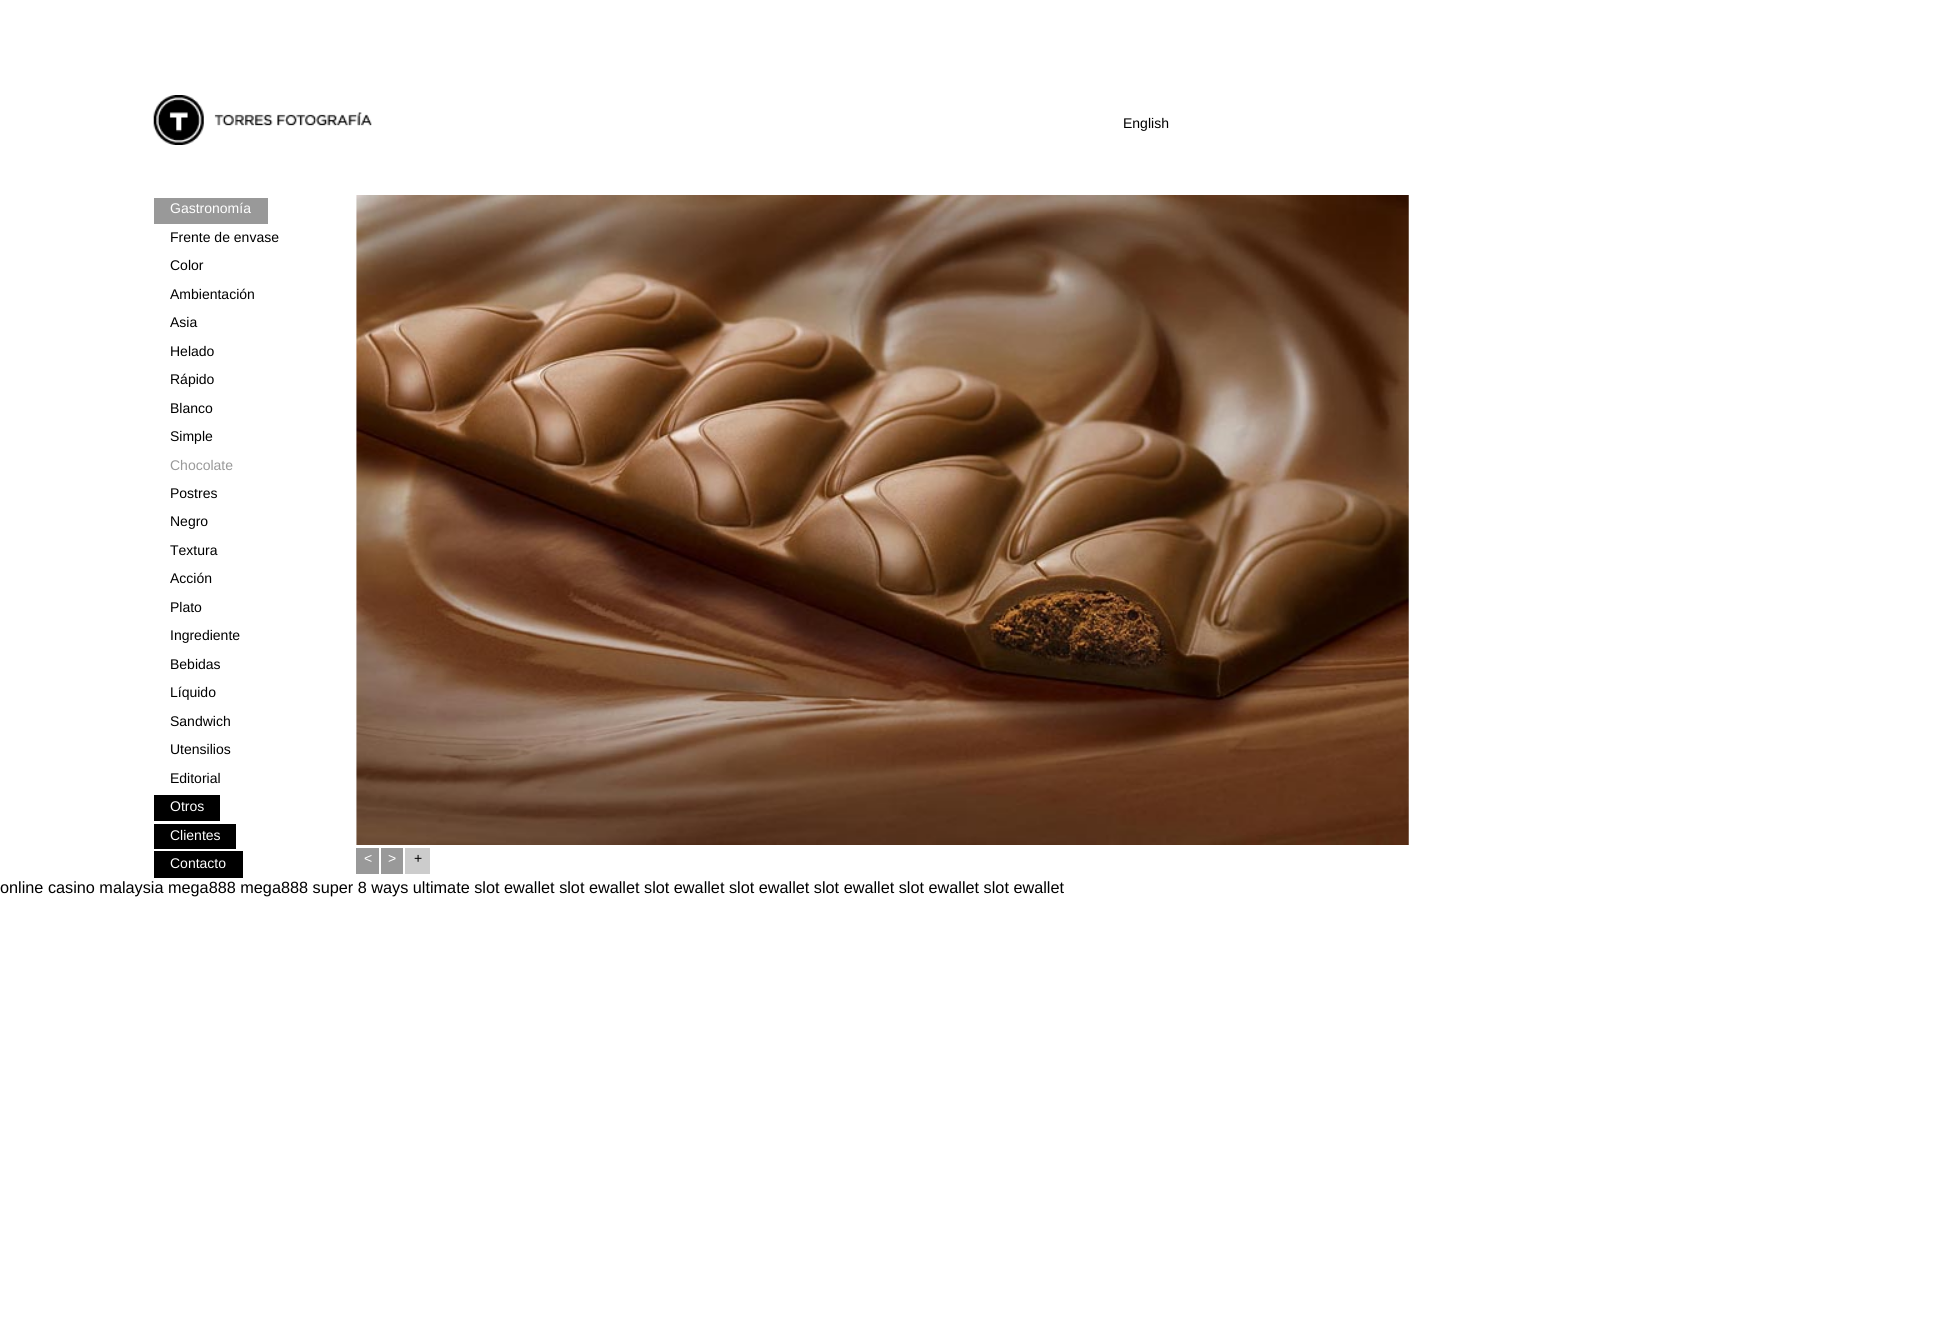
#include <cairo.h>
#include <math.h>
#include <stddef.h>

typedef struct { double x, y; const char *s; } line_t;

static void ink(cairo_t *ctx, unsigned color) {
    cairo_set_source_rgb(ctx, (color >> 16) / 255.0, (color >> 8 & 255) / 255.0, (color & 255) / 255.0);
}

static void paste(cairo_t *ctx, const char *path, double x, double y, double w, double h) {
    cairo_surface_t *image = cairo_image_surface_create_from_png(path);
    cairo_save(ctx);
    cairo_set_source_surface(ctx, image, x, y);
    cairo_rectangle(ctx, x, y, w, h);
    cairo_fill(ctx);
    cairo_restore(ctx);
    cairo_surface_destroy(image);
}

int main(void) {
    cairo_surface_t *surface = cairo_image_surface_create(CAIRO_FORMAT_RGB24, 1945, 1320);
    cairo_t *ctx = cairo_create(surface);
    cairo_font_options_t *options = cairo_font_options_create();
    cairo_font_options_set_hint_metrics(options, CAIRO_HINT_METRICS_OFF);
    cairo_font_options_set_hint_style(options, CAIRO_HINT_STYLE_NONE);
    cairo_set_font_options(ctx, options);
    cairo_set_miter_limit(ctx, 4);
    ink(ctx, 0xFFFFFF);
    cairo_paint(ctx);
    paste(ctx, "media/1.png", 153, 95, 219, 50);
    cairo_select_font_face(ctx, "Liberation Sans", CAIRO_FONT_SLANT_NORMAL, CAIRO_FONT_WEIGHT_NORMAL);
    cairo_set_font_size(ctx, 14);
    ink(ctx, 0x000000);
    cairo_move_to(ctx, 1123, 128);
    cairo_show_text(ctx, "English");
    ink(ctx, 0x999999);
    cairo_rectangle(ctx, 154, 198, 114, 26);
    cairo_fill(ctx);
    ink(ctx, 0xFFFFFF);
    cairo_move_to(ctx, 170, 213);
    cairo_show_text(ctx, "Gastronomía");
    ink(ctx, 0x000000);
    {
        static const line_t items[] = {
            {170, 242, "Frente de envase"},
            {170, 270, "Color"},
            {170, 299, "Ambientación"},
            {170, 327, "Asia"},
            {170, 356, "Helado"},
            {170, 384, "Rápido"},
            {170, 413, "Blanco"},
            {170, 441, "Simple"},
        };
        for (size_t i = 0; i < sizeof items / sizeof *items; i++) {
            cairo_move_to(ctx, items[i].x, items[i].y);
            cairo_show_text(ctx, items[i].s);
        }
    }
    ink(ctx, 0x999999);
    cairo_move_to(ctx, 170, 470);
    cairo_show_text(ctx, "Chocolate");
    ink(ctx, 0x000000);
    {
        static const line_t items[] = {
            {170, 498, "Postres"},
            {170, 526, "Negro"},
            {170, 555, "Textura"},
            {170, 583, "Acción"},
            {170, 612, "Plato"},
            {170, 640, "Ingrediente"},
            {170, 669, "Bebidas"},
            {170, 697, "Líquido"},
            {170, 726, "Sandwich"},
            {170, 754, "Utensilios"},
            {170, 783, "Editorial"},
        };
        for (size_t i = 0; i < sizeof items / sizeof *items; i++) {
            cairo_move_to(ctx, items[i].x, items[i].y);
            cairo_show_text(ctx, items[i].s);
        }
    }
    cairo_rectangle(ctx, 154, 795, 66, 26);
    cairo_fill(ctx);
    ink(ctx, 0xFFFFFF);
    cairo_move_to(ctx, 170, 811);
    cairo_show_text(ctx, "Otros");
    ink(ctx, 0x000000);
    cairo_rectangle(ctx, 154, 824, 82, 25);
    cairo_fill(ctx);
    ink(ctx, 0xFFFFFF);
    cairo_move_to(ctx, 170, 840);
    cairo_show_text(ctx, "Clientes");
    ink(ctx, 0x000000);
    cairo_rectangle(ctx, 154, 851, 89, 27);
    cairo_fill(ctx);
    ink(ctx, 0xFFFFFF);
    cairo_move_to(ctx, 170, 868);
    cairo_show_text(ctx, "Contacto");
    paste(ctx, "media/2.png", 356, 195, 1053, 650);
    ink(ctx, 0x999999);
    cairo_rectangle(ctx, 356, 848, 23, 26);
    cairo_fill(ctx);
    ink(ctx, 0xFFFFFF);
    cairo_move_to(ctx, 364, 863);
    cairo_show_text(ctx, "<");
    ink(ctx, 0x999999);
    cairo_rectangle(ctx, 381, 848, 22, 26);
    cairo_fill(ctx);
    ink(ctx, 0xFFFFFF);
    cairo_move_to(ctx, 388, 863);
    cairo_show_text(ctx, ">");
    ink(ctx, 0xCCCCCC);
    cairo_rectangle(ctx, 405, 848, 25, 26);
    cairo_fill(ctx);
    ink(ctx, 0x000000);
    cairo_move_to(ctx, 414, 863);
    cairo_show_text(ctx, "+");
    cairo_set_font_size(ctx, 16.25);
    cairo_move_to(ctx, 0, 893);
    cairo_show_text(ctx, "online casino malaysia mega888 mega888 super 8 ways ultimate slot ewallet slot ewallet slot ewallet slot ewallet slot ewallet slot ewallet slot ewallet");
    cairo_surface_write_to_png(surface, "image.png");
    cairo_font_options_destroy(options);
    cairo_destroy(ctx);
    cairo_surface_destroy(surface);
    return 0;
}
